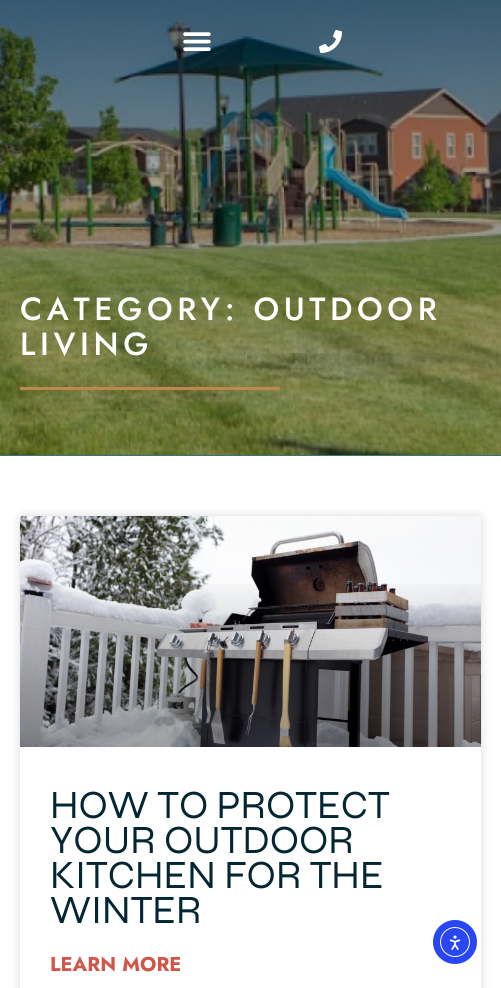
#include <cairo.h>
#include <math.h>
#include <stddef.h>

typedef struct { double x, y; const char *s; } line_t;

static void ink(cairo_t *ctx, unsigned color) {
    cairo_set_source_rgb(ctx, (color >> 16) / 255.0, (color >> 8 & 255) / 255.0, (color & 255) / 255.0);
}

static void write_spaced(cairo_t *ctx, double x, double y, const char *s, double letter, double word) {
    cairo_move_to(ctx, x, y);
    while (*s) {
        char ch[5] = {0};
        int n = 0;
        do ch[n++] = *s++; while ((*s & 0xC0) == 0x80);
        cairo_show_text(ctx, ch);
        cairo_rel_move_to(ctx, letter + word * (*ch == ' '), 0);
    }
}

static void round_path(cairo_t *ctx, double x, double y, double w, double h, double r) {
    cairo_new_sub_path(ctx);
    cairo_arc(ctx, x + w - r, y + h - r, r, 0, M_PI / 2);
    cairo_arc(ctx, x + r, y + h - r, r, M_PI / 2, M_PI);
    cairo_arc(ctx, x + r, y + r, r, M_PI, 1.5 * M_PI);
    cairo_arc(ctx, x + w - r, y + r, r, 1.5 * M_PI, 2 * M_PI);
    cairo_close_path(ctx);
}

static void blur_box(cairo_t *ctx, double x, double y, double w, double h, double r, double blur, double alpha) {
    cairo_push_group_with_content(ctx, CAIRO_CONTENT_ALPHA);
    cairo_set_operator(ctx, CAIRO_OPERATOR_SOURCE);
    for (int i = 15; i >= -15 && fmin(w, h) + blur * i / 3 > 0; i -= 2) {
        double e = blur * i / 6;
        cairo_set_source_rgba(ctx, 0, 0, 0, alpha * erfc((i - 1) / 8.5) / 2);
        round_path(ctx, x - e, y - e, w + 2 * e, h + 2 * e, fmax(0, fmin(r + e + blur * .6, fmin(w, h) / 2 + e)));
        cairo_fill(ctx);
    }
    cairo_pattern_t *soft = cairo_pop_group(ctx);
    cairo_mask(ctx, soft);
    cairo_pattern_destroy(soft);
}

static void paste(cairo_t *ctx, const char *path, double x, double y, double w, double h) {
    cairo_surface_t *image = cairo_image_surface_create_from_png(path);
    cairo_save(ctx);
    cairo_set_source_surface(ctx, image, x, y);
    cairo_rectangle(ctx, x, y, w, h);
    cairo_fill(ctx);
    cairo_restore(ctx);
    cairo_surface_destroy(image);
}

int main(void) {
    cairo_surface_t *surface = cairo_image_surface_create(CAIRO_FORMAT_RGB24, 501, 988);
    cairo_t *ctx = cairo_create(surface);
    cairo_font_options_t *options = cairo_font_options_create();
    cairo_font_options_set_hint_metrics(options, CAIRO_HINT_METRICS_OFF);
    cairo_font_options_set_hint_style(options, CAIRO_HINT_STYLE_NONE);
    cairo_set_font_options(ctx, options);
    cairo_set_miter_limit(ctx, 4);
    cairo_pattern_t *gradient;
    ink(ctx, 0xFFFFFF);
    cairo_paint(ctx);
    paste(ctx, "media/3.png", 0, 0, 501, 455);
    paste(ctx, "media/1.png", 183, 32, 28, 19);
    paste(ctx, "media/2.png", 319, 30, 23, 23);
    cairo_select_font_face(ctx, "Jost Medium", CAIRO_FONT_SLANT_NORMAL, CAIRO_FONT_WEIGHT_NORMAL);
    cairo_set_font_size(ctx, 32);
    ink(ctx, 0xFFFFFF);
    write_spaced(ctx, 20, 320, "CATEGORY: OUTDOOR", 4.6, 0);
    write_spaced(ctx, 20, 355, "LIVING", 4.6, 0);
    ink(ctx, 0xBF874C);
    cairo_rectangle(ctx, 20, 387, 260, 3);
    cairo_fill(ctx);
    ink(ctx, 0x36747B);
    cairo_rectangle(ctx, 0, 455, 501, 1);
    cairo_fill(ctx);
    ink(ctx, 0x000000);
    blur_box(ctx, 20, 516, 461, 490, 3, 5, 0.15);
    ink(ctx, 0xFFFFFF);
    round_path(ctx, 20, 516, 461, 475, 3);
    cairo_fill(ctx);
    paste(ctx, "media/4.png", 20, 516, 461, 231);
    gradient = cairo_pattern_create_linear(251, 747, 251, 516);
    cairo_pattern_add_color_stop_rgba(gradient, 0, 0, 0, 0, 0.35);
    cairo_pattern_add_color_stop_rgba(gradient, 0.75, 0, 0, 0, 0);
    cairo_set_source(ctx, gradient);
    cairo_pattern_destroy(gradient);
    cairo_rectangle(ctx, 20, 584, 461, 163);
    cairo_fill(ctx);
    cairo_select_font_face(ctx, "Syne", CAIRO_FONT_SLANT_NORMAL, CAIRO_FONT_WEIGHT_NORMAL);
    cairo_set_font_size(ctx, 40);
    ink(ctx, 0x032633);
    {
        static const line_t items[] = {
            {50, 818, "HOW TO PROTECT"},
            {50, 853, "YOUR OUTDOOR"},
            {50, 888, "KITCHEN FOR THE"},
            {50, 923, "WINTER"},
        };
        for (size_t i = 0; i < sizeof items / sizeof *items; i++) {
            cairo_move_to(ctx, items[i].x, items[i].y);
            cairo_show_text(ctx, items[i].s);
        }
    }
    cairo_select_font_face(ctx, "Jost", CAIRO_FONT_SLANT_NORMAL, CAIRO_FONT_WEIGHT_BOLD);
    cairo_set_font_size(ctx, 20);
    ink(ctx, 0xD05647);
    cairo_move_to(ctx, 50, 971);
    cairo_show_text(ctx, "LEARN MORE");
    ink(ctx, 0x2847F3);
    cairo_new_path(ctx);
    cairo_arc(ctx, 455, 942, 22, 0, 2 * M_PI);
    cairo_fill(ctx);
    cairo_arc(ctx, 455, 942, 14.5, 0, 2 * M_PI);
    ink(ctx, 0xFFFFFF);
    cairo_set_line_width(ctx, 1);
    cairo_stroke(ctx);
    paste(ctx, "media/5.png", 449, 935, 12, 15);
    cairo_surface_write_to_png(surface, "image.png");
    cairo_font_options_destroy(options);
    cairo_destroy(ctx);
    cairo_surface_destroy(surface);
    return 0;
}
